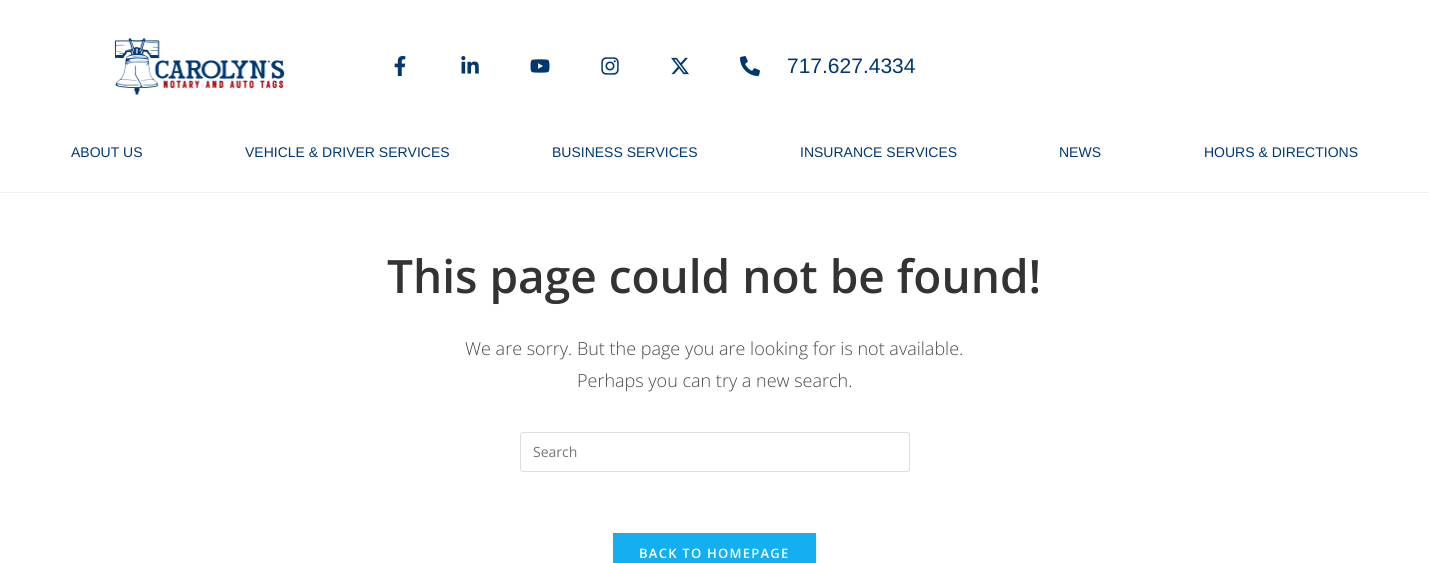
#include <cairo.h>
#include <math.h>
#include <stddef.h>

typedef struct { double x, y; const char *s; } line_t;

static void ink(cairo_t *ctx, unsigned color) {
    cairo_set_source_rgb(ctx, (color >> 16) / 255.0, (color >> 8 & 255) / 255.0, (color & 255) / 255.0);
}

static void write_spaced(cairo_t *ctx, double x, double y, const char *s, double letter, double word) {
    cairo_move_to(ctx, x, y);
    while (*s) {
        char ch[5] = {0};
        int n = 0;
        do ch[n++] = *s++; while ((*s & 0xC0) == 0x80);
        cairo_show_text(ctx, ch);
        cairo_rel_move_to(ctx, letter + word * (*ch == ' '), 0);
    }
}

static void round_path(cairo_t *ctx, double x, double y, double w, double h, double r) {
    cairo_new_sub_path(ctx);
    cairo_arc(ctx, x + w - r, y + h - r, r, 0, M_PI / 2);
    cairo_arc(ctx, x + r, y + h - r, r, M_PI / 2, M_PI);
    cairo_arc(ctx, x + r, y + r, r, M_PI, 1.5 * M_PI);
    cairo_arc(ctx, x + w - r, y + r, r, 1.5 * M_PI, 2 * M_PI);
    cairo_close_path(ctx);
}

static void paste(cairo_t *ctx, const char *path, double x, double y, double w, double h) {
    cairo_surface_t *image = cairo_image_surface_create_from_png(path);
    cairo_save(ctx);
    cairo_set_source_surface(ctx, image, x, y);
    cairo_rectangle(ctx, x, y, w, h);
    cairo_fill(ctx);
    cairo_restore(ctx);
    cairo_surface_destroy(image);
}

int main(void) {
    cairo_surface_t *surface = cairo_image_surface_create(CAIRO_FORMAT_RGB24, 1429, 563);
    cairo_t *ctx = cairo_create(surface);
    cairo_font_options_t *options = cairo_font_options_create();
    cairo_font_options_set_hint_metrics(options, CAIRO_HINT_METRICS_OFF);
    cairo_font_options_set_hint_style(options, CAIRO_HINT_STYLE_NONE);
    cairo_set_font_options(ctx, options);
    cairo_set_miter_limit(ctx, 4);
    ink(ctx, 0xFFFFFF);
    cairo_paint(ctx);
    ink(ctx, 0xF1F1F1);
    cairo_rectangle(ctx, 0, 192, 1429, 1);
    cairo_fill(ctx);
    paste(ctx, "media/1.png", 114, 38, 171, 57);
    paste(ctx, "media/2.png", 394, 56, 12, 20);
    paste(ctx, "media/3.png", 461, 56, 18, 18);
    paste(ctx, "media/4.png", 530, 59, 20, 14);
    paste(ctx, "media/5.png", 601, 57, 18, 18);
    paste(ctx, "media/6.png", 671, 57, 18, 18);
    paste(ctx, "media/7.png", 740, 56, 20, 20);
    cairo_select_font_face(ctx, "Liberation Sans", CAIRO_FONT_SLANT_NORMAL, CAIRO_FONT_WEIGHT_NORMAL);
    cairo_set_font_size(ctx, 21);
    ink(ctx, 0x003771);
    cairo_move_to(ctx, 787, 73);
    cairo_show_text(ctx, "717.627.4334");
    cairo_set_font_size(ctx, 14);
    {
        static const line_t items[] = {
            {71, 157, "ABOUT US"},
            {245, 157, "VEHICLE & DRIVER SERVICES"},
            {552, 157, "BUSINESS SERVICES"},
            {800, 157, "INSURANCE SERVICES"},
            {1059, 157, "NEWS"},
            {1204, 157, "HOURS & DIRECTIONS"},
        };
        for (size_t i = 0; i < sizeof items / sizeof *items; i++) {
            cairo_move_to(ctx, items[i].x, items[i].y);
            cairo_show_text(ctx, items[i].s);
        }
    }
    cairo_select_font_face(ctx, "Open Sans SemiBold", CAIRO_FONT_SLANT_NORMAL, CAIRO_FONT_WEIGHT_NORMAL);
    cairo_set_font_size(ctx, 46);
    ink(ctx, 0x333333);
    cairo_move_to(ctx, 387, 293);
    cairo_show_text(ctx, "This page could not be found!");
    cairo_select_font_face(ctx, "Open Sans Light", CAIRO_FONT_SLANT_NORMAL, CAIRO_FONT_WEIGHT_NORMAL);
    cairo_set_font_size(ctx, 18);
    ink(ctx, 0x4A4A4A);
    cairo_move_to(ctx, 465, 355);
    cairo_show_text(ctx, "We are sorry. But the page you are looking for is not available.");
    cairo_move_to(ctx, 577, 387);
    cairo_show_text(ctx, "Perhaps you can try a new search.");
    round_path(ctx, 520.5, 432.5, 389, 39, 2.5);
    ink(ctx, 0xDDDDDD);
    cairo_set_line_width(ctx, 1);
    cairo_stroke(ctx);
    cairo_select_font_face(ctx, "Open Sans", CAIRO_FONT_SLANT_NORMAL, CAIRO_FONT_WEIGHT_NORMAL);
    cairo_set_font_size(ctx, 14);
    ink(ctx, 0x757575);
    cairo_move_to(ctx, 533, 457);
    cairo_show_text(ctx, "Search");
    ink(ctx, 0x13AFF0);
    cairo_rectangle(ctx, 613, 533, 203, 30);
    cairo_fill(ctx);
    cairo_select_font_face(ctx, "Open Sans SemiBold", CAIRO_FONT_SLANT_NORMAL, CAIRO_FONT_WEIGHT_NORMAL);
    cairo_set_font_size(ctx, 13);
    ink(ctx, 0xFFFFFF);
    write_spaced(ctx, 639, 558, "BACK TO HOMEPAGE", 1.25, 0);
    cairo_surface_write_to_png(surface, "image.png");
    cairo_font_options_destroy(options);
    cairo_destroy(ctx);
    cairo_surface_destroy(surface);
    return 0;
}
